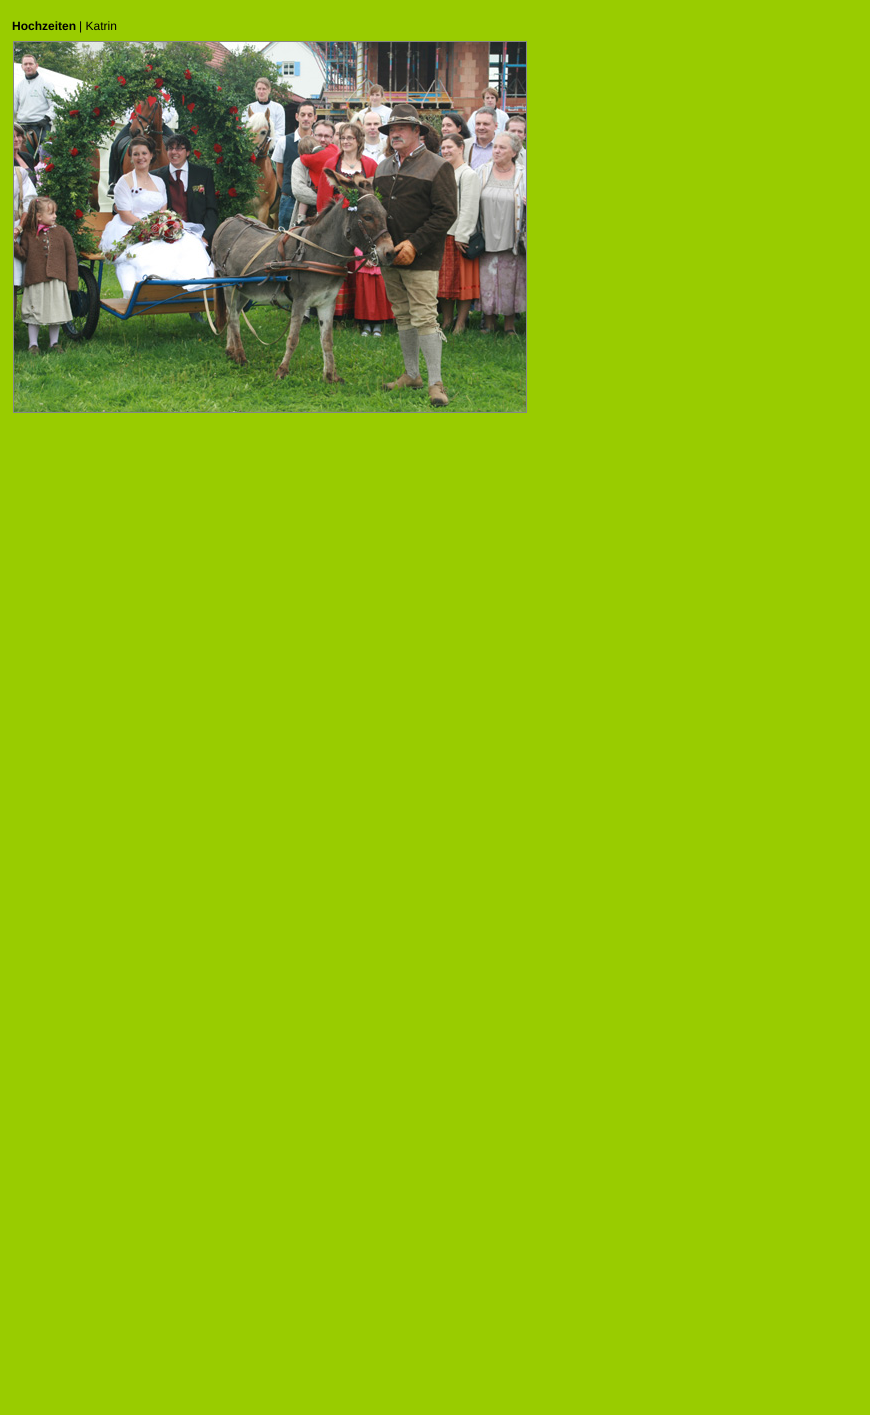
#include <cairo.h>
#include <math.h>
#include <stddef.h>


static void ink(cairo_t *ctx, unsigned color) {
    cairo_set_source_rgb(ctx, (color >> 16) / 255.0, (color >> 8 & 255) / 255.0, (color & 255) / 255.0);
}

static void paste(cairo_t *ctx, const char *path, double x, double y, double w, double h) {
    cairo_surface_t *image = cairo_image_surface_create_from_png(path);
    cairo_save(ctx);
    cairo_set_source_surface(ctx, image, x, y);
    cairo_rectangle(ctx, x, y, w, h);
    cairo_fill(ctx);
    cairo_restore(ctx);
    cairo_surface_destroy(image);
}

int main(void) {
    cairo_surface_t *surface = cairo_image_surface_create(CAIRO_FORMAT_RGB24, 870, 1415);
    cairo_t *ctx = cairo_create(surface);
    cairo_font_options_t *options = cairo_font_options_create();
    cairo_font_options_set_hint_metrics(options, CAIRO_HINT_METRICS_OFF);
    cairo_font_options_set_hint_style(options, CAIRO_HINT_STYLE_NONE);
    cairo_set_font_options(ctx, options);
    cairo_set_miter_limit(ctx, 4);
    ink(ctx, 0x99CC00);
    cairo_paint(ctx);
    cairo_select_font_face(ctx, "Liberation Sans", CAIRO_FONT_SLANT_NORMAL, CAIRO_FONT_WEIGHT_BOLD);
    cairo_set_font_size(ctx, 12);
    ink(ctx, 0x000000);
    cairo_move_to(ctx, 12, 30);
    cairo_show_text(ctx, "Hochzeiten");
    cairo_select_font_face(ctx, "Liberation Sans", CAIRO_FONT_SLANT_NORMAL, CAIRO_FONT_WEIGHT_NORMAL);
    cairo_move_to(ctx, 79, 30);
    cairo_show_text(ctx, "| Katrin");
    cairo_rectangle(ctx, 13.5, 41.5, 513, 371);
    ink(ctx, 0x888888);
    cairo_set_line_width(ctx, 1);
    cairo_stroke(ctx);
    paste(ctx, "media/1.png", 14, 42, 512, 370);
    cairo_surface_write_to_png(surface, "image.png");
    cairo_font_options_destroy(options);
    cairo_destroy(ctx);
    cairo_surface_destroy(surface);
    return 0;
}
